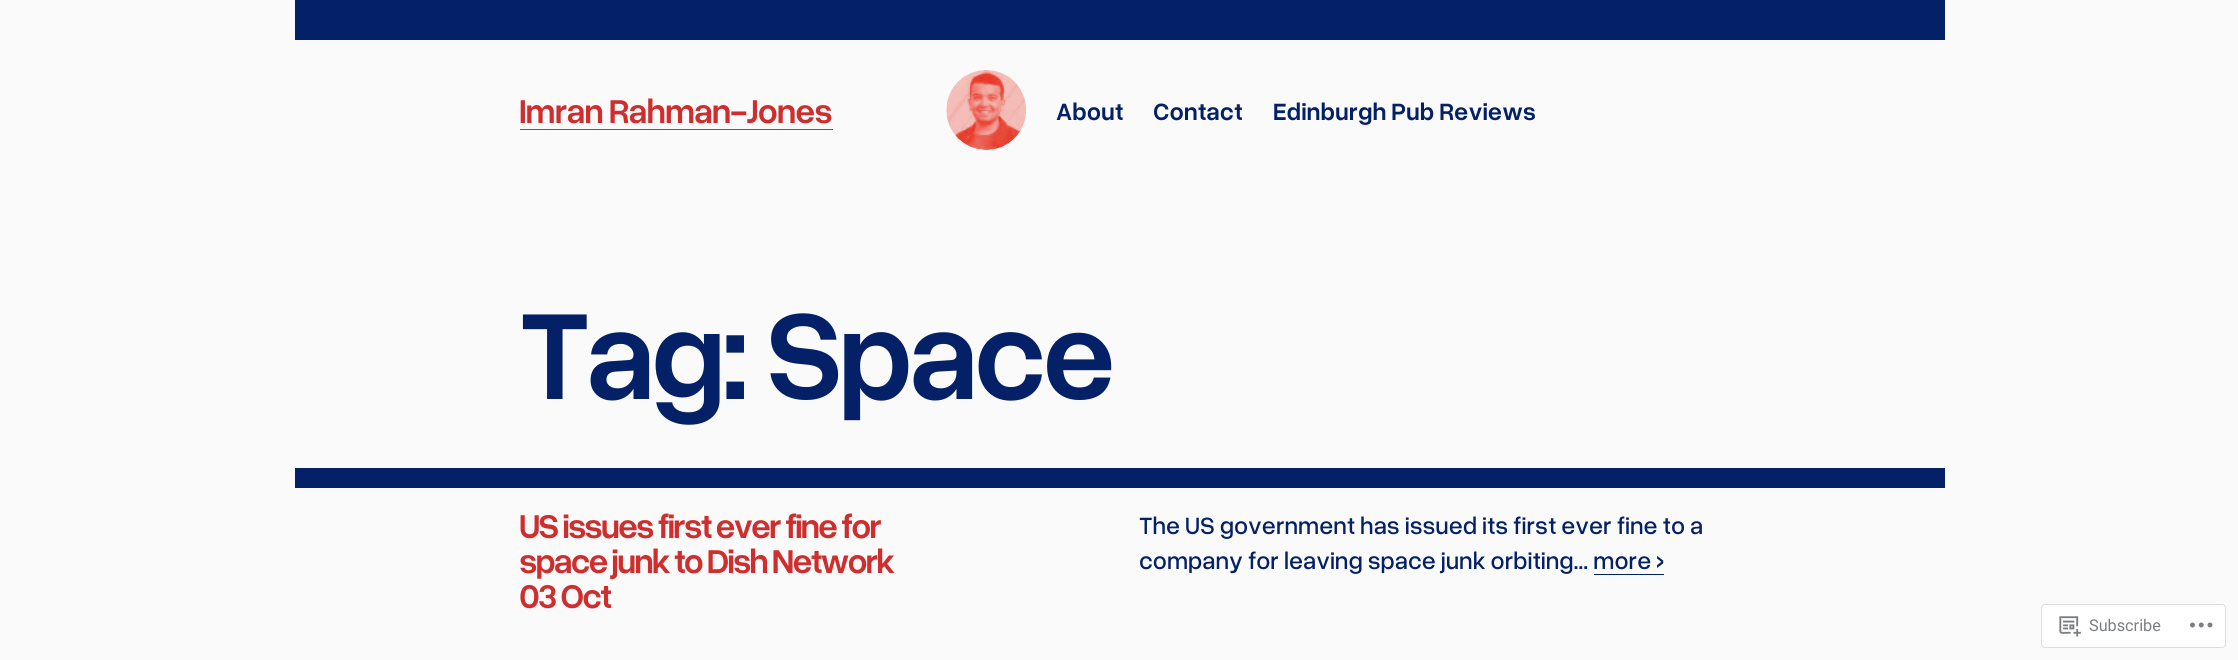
#include <cairo.h>
#include <math.h>
#include <stddef.h>

typedef struct { double x, y; const char *s; } line_t;

static void ink(cairo_t *ctx, unsigned color) {
    cairo_set_source_rgb(ctx, (color >> 16) / 255.0, (color >> 8 & 255) / 255.0, (color & 255) / 255.0);
}

static void write_spaced(cairo_t *ctx, double x, double y, const char *s, double letter, double word) {
    cairo_move_to(ctx, x, y);
    while (*s) {
        char ch[5] = {0};
        int n = 0;
        do ch[n++] = *s++; while ((*s & 0xC0) == 0x80);
        cairo_show_text(ctx, ch);
        cairo_rel_move_to(ctx, letter + word * (*ch == ' '), 0);
    }
}

static void round_path(cairo_t *ctx, double x, double y, double w, double h, double r) {
    cairo_new_sub_path(ctx);
    cairo_arc(ctx, x + w - r, y + h - r, r, 0, M_PI / 2);
    cairo_arc(ctx, x + r, y + h - r, r, M_PI / 2, M_PI);
    cairo_arc(ctx, x + r, y + r, r, M_PI, 1.5 * M_PI);
    cairo_arc(ctx, x + w - r, y + r, r, 1.5 * M_PI, 2 * M_PI);
    cairo_close_path(ctx);
}

static void paste(cairo_t *ctx, const char *path, double x, double y, double w, double h) {
    cairo_surface_t *image = cairo_image_surface_create_from_png(path);
    cairo_save(ctx);
    cairo_set_source_surface(ctx, image, x, y);
    cairo_rectangle(ctx, x, y, w, h);
    cairo_fill(ctx);
    cairo_restore(ctx);
    cairo_surface_destroy(image);
}

int main(void) {
    cairo_surface_t *surface = cairo_image_surface_create(CAIRO_FORMAT_RGB24, 2238, 660);
    cairo_t *ctx = cairo_create(surface);
    cairo_font_options_t *options = cairo_font_options_create();
    cairo_font_options_set_hint_metrics(options, CAIRO_HINT_METRICS_OFF);
    cairo_font_options_set_hint_style(options, CAIRO_HINT_STYLE_NONE);
    cairo_set_font_options(ctx, options);
    cairo_set_miter_limit(ctx, 4);
    ink(ctx, 0xFAFAFA);
    cairo_paint(ctx);
    ink(ctx, 0x042067);
    cairo_rectangle(ctx, 295, 0, 1650, 40);
    cairo_fill(ctx);
    cairo_select_font_face(ctx, "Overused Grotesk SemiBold", CAIRO_FONT_SLANT_NORMAL, CAIRO_FONT_WEIGHT_NORMAL);
    cairo_set_font_size(ctx, 35);
    ink(ctx, 0xCF2E2E);
    write_spaced(ctx, 519, 123, "Imran Rahman-Jones", -1, 0);
    cairo_rectangle(ctx, 520, 129, 313, 1);
    cairo_fill(ctx);
    paste(ctx, "media/1.png", 946, 70, 80, 80);
    cairo_set_font_size(ctx, 25);
    ink(ctx, 0x042067);
    {
        static const line_t items[] = {
            {1056, 120, "About"},
            {1153, 120, "Contact"},
            {1273, 120, "Edinburgh Pub Reviews"},
        };
        for (size_t i = 0; i < sizeof items / sizeof *items; i++) {
            cairo_move_to(ctx, items[i].x, items[i].y);
            cairo_show_text(ctx, items[i].s);
        }
    }
    cairo_set_font_size(ctx, 130);
    write_spaced(ctx, 519, 399, "Tag: Space", -5, 0);
    cairo_rectangle(ctx, 295, 468, 1650, 20);
    cairo_fill(ctx);
    cairo_set_font_size(ctx, 35);
    ink(ctx, 0xCF2E2E);
    {
        static const line_t items[] = {
            {519, 538, "US issues first ever fine for"},
            {519, 573, "space junk to Dish Network"},
            {519, 608, "03 Oct"},
        };
        for (size_t i = 0; i < sizeof items / sizeof *items; i++) {
            write_spaced(ctx, items[i].x, items[i].y, items[i].s, -2, 0);
        }
    }
    cairo_select_font_face(ctx, "Overused Grotesk Medium", CAIRO_FONT_SLANT_NORMAL, CAIRO_FONT_WEIGHT_NORMAL);
    cairo_set_font_size(ctx, 25);
    ink(ctx, 0x042067);
    cairo_move_to(ctx, 1139, 534);
    cairo_show_text(ctx, "The US government has issued its first ever fine to a");
    cairo_move_to(ctx, 1139, 569);
    cairo_show_text(ctx, "company for leaving space junk orbiting… more ›");
    cairo_rectangle(ctx, 1594, 574, 70, 1);
    cairo_fill(ctx);
    ink(ctx, 0xFFFFFF);
    round_path(ctx, 2041.5, 604.5, 184, 43, 3.5);
    cairo_fill_preserve(ctx);
    ink(ctx, 0xDDDDDF);
    cairo_set_line_width(ctx, 1);
    cairo_stroke(ctx);
    paste(ctx, "media/2.png", 2059, 616, 22, 21);
    cairo_select_font_face(ctx, "Roboto", CAIRO_FONT_SLANT_NORMAL, CAIRO_FONT_WEIGHT_NORMAL);
    cairo_set_font_size(ctx, 16.25);
    ink(ctx, 0x7B7F84);
    cairo_move_to(ctx, 2089, 631);
    cairo_show_text(ctx, "Subscribe");
    paste(ctx, "media/3.png", 2190, 622, 23, 6);
    cairo_surface_write_to_png(surface, "image.png");
    cairo_font_options_destroy(options);
    cairo_destroy(ctx);
    cairo_surface_destroy(surface);
    return 0;
}
